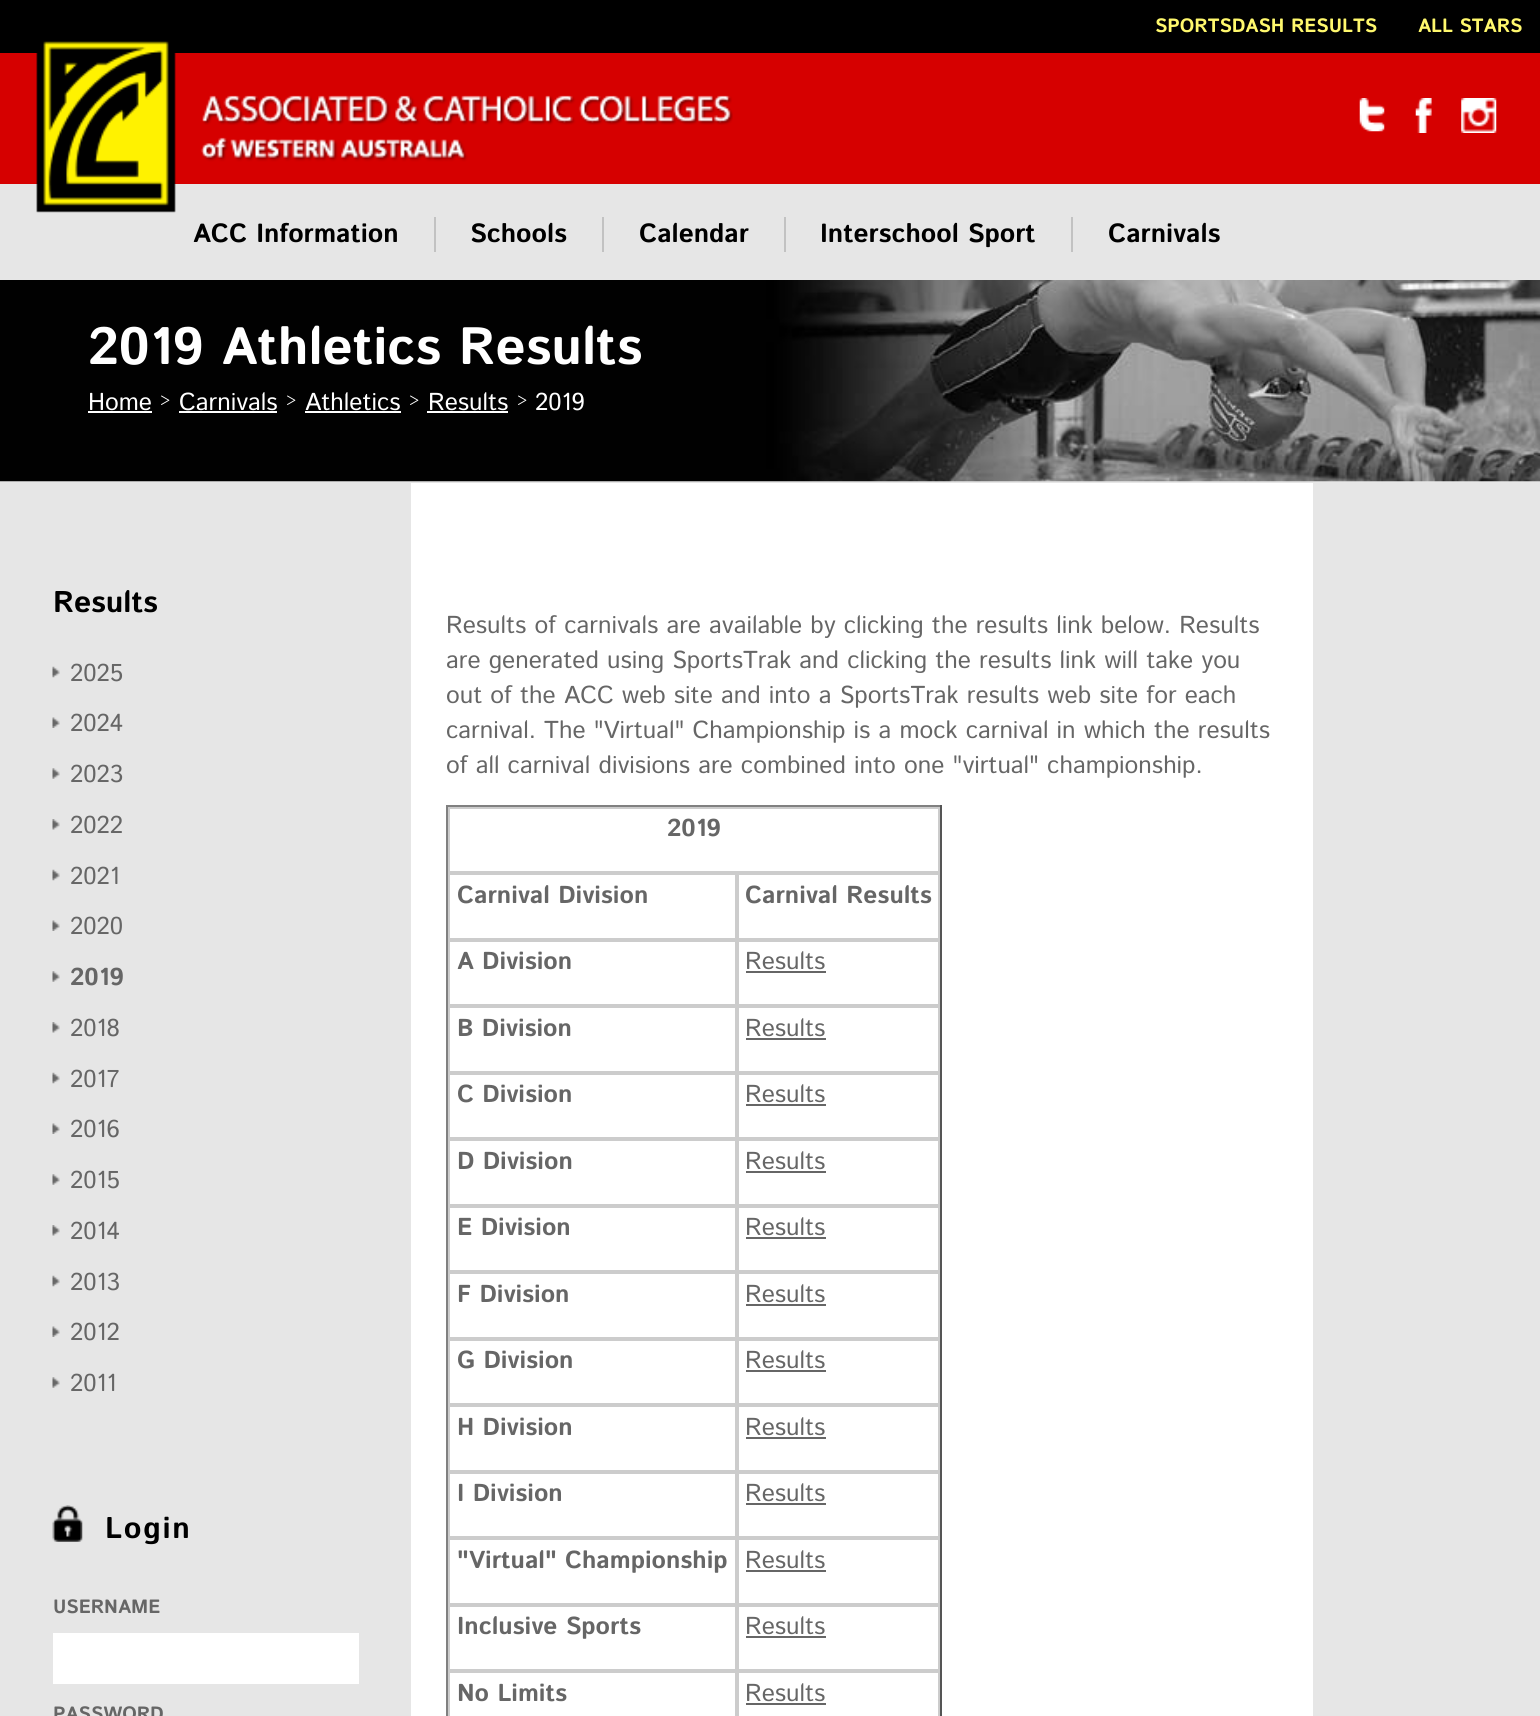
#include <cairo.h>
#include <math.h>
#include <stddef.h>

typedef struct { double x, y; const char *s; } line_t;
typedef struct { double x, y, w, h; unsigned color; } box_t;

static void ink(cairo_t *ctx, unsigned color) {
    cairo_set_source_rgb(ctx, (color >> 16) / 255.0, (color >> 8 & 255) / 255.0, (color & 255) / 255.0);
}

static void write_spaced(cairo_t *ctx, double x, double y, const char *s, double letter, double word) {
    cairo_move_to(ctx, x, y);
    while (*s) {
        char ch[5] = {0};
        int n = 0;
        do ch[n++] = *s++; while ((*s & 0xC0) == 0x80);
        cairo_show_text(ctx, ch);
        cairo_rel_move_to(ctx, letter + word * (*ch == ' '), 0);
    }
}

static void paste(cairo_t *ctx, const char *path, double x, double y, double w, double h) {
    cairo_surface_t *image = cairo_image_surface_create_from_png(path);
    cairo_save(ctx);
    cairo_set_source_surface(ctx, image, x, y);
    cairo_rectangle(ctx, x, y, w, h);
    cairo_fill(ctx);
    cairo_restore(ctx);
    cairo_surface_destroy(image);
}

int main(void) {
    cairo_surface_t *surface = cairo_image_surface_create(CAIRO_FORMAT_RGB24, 1540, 1716);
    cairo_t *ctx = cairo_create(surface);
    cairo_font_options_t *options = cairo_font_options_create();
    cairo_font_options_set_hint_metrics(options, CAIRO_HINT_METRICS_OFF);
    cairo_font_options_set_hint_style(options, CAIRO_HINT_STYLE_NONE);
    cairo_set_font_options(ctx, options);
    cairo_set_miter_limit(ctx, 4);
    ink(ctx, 0xD60000);
    cairo_paint(ctx);
    ink(ctx, 0x000000);
    cairo_rectangle(ctx, 0, 0, 1540, 53);
    cairo_fill(ctx);
    cairo_select_font_face(ctx, "Istok Web", CAIRO_FONT_SLANT_NORMAL, CAIRO_FONT_WEIGHT_BOLD);
    cairo_set_font_size(ctx, 19.25);
    ink(ctx, 0xFFF86D);
    cairo_move_to(ctx, 1155, 32);
    cairo_show_text(ctx, "SPORTSDASH RESULTS");
    cairo_move_to(ctx, 1418, 32);
    cairo_show_text(ctx, "ALL STARS");
    ink(ctx, 0xE6E6E6);
    cairo_rectangle(ctx, 0, 184, 1540, 96);
    cairo_fill(ctx);
    paste(ctx, "media/1.png", 36, 41, 697, 172);
    paste(ctx, "media/2.png", 1359, 98, 26, 34);
    paste(ctx, "media/3.png", 1415, 98, 17, 35);
    paste(ctx, "media/4.png", 1461, 98, 36, 35);
    ink(ctx, 0xC2C2C2);
    cairo_rectangle(ctx, 434, 217, 2, 35);
    cairo_fill(ctx);
    cairo_set_font_size(ctx, 26.25);
    ink(ctx, 0x000000);
    cairo_move_to(ctx, 193, 242);
    cairo_show_text(ctx, "ACC Information");
    ink(ctx, 0xC2C2C2);
    cairo_rectangle(ctx, 602, 217, 2, 35);
    cairo_fill(ctx);
    ink(ctx, 0x000000);
    cairo_move_to(ctx, 470, 242);
    cairo_show_text(ctx, "Schools");
    ink(ctx, 0xC2C2C2);
    cairo_rectangle(ctx, 784, 217, 2, 35);
    cairo_fill(ctx);
    ink(ctx, 0x000000);
    cairo_move_to(ctx, 639, 242);
    cairo_show_text(ctx, "Calendar");
    ink(ctx, 0xC2C2C2);
    cairo_rectangle(ctx, 1071, 217, 2, 35);
    cairo_fill(ctx);
    ink(ctx, 0x000000);
    cairo_move_to(ctx, 820, 242);
    cairo_show_text(ctx, "Interschool Sport");
    cairo_move_to(ctx, 1108, 242);
    cairo_show_text(ctx, "Carnivals");
    ink(ctx, 0xE6E6E6);
    cairo_rectangle(ctx, 0, 481, 1540, 1235);
    cairo_fill(ctx);
    paste(ctx, "media/5.png", 0, 280, 1540, 202);
    cairo_set_font_size(ctx, 52.5);
    ink(ctx, 0xFFFFFF);
    cairo_move_to(ctx, 88, 364);
    cairo_show_text(ctx, "2019 Athletics Results");
    cairo_select_font_face(ctx, "Istok Web", CAIRO_FONT_SLANT_NORMAL, CAIRO_FONT_WEIGHT_NORMAL);
    cairo_set_font_size(ctx, 24.5);
    cairo_move_to(ctx, 88, 410);
    cairo_show_text(ctx, "Home");
    cairo_rectangle(ctx, 88, 411, 64, 2);
    cairo_fill(ctx);
    cairo_set_font_size(ctx, 16);
    cairo_move_to(ctx, 160, 406);
    cairo_show_text(ctx, ">");
    cairo_set_font_size(ctx, 24.5);
    cairo_move_to(ctx, 179, 410);
    cairo_show_text(ctx, "Carnivals");
    cairo_rectangle(ctx, 179, 411, 98, 2);
    cairo_fill(ctx);
    cairo_set_font_size(ctx, 16);
    cairo_move_to(ctx, 286, 406);
    cairo_show_text(ctx, ">");
    cairo_set_font_size(ctx, 24.5);
    cairo_move_to(ctx, 305, 410);
    cairo_show_text(ctx, "Athletics");
    cairo_rectangle(ctx, 305, 411, 96, 2);
    cairo_fill(ctx);
    cairo_set_font_size(ctx, 16);
    cairo_move_to(ctx, 409, 406);
    cairo_show_text(ctx, ">");
    cairo_set_font_size(ctx, 24.5);
    cairo_move_to(ctx, 428, 410);
    cairo_show_text(ctx, "Results");
    cairo_rectangle(ctx, 427, 411, 81, 2);
    cairo_fill(ctx);
    cairo_set_font_size(ctx, 16);
    cairo_move_to(ctx, 517, 406);
    cairo_show_text(ctx, ">");
    cairo_set_font_size(ctx, 24.5);
    cairo_move_to(ctx, 535, 410);
    cairo_show_text(ctx, "2019");
    cairo_select_font_face(ctx, "Istok Web", CAIRO_FONT_SLANT_NORMAL, CAIRO_FONT_WEIGHT_BOLD);
    cairo_set_font_size(ctx, 30);
    ink(ctx, 0x000000);
    cairo_move_to(ctx, 53, 612);
    cairo_show_text(ctx, "Results");
    paste(ctx, "media/6.png", 52, 666, 8, 12);
    cairo_select_font_face(ctx, "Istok", CAIRO_FONT_SLANT_NORMAL, CAIRO_FONT_WEIGHT_NORMAL);
    cairo_set_font_size(ctx, 24.5);
    ink(ctx, 0x666666);
    cairo_move_to(ctx, 70, 681);
    cairo_show_text(ctx, "2025");
    paste(ctx, "media/7.png", 52, 717, 8, 11);
    cairo_move_to(ctx, 70, 731);
    cairo_show_text(ctx, "2024");
    paste(ctx, "media/8.png", 52, 768, 8, 11);
    cairo_move_to(ctx, 70, 782);
    cairo_show_text(ctx, "2023");
    paste(ctx, "media/9.png", 52, 819, 8, 11);
    cairo_move_to(ctx, 70, 833);
    cairo_show_text(ctx, "2022");
    paste(ctx, "media/6.png", 52, 869, 8, 12);
    cairo_move_to(ctx, 70, 884);
    cairo_show_text(ctx, "2021");
    paste(ctx, "media/7.png", 52, 920, 8, 11);
    cairo_move_to(ctx, 70, 934);
    cairo_show_text(ctx, "2020");
    paste(ctx, "media/8.png", 52, 971, 8, 11);
    cairo_select_font_face(ctx, "Istok Web", CAIRO_FONT_SLANT_NORMAL, CAIRO_FONT_WEIGHT_BOLD);
    cairo_move_to(ctx, 70, 985);
    cairo_show_text(ctx, "2019");
    paste(ctx, "media/9.png", 52, 1022, 8, 11);
    cairo_select_font_face(ctx, "Istok", CAIRO_FONT_SLANT_NORMAL, CAIRO_FONT_WEIGHT_NORMAL);
    cairo_move_to(ctx, 70, 1036);
    cairo_show_text(ctx, "2018");
    paste(ctx, "media/6.png", 52, 1072, 8, 12);
    cairo_move_to(ctx, 70, 1087);
    cairo_show_text(ctx, "2017");
    paste(ctx, "media/7.png", 52, 1123, 8, 11);
    cairo_move_to(ctx, 70, 1137);
    cairo_show_text(ctx, "2016");
    paste(ctx, "media/8.png", 52, 1174, 8, 11);
    cairo_move_to(ctx, 70, 1188);
    cairo_show_text(ctx, "2015");
    paste(ctx, "media/9.png", 52, 1225, 8, 11);
    cairo_move_to(ctx, 70, 1239);
    cairo_show_text(ctx, "2014");
    paste(ctx, "media/6.png", 52, 1275, 8, 12);
    cairo_move_to(ctx, 70, 1290);
    cairo_show_text(ctx, "2013");
    paste(ctx, "media/7.png", 52, 1326, 8, 11);
    cairo_move_to(ctx, 70, 1340);
    cairo_show_text(ctx, "2012");
    paste(ctx, "media/8.png", 52, 1377, 8, 11);
    cairo_move_to(ctx, 70, 1391);
    cairo_show_text(ctx, "2011");
    paste(ctx, "media/10.png", 52, 1505, 31, 37);
    cairo_select_font_face(ctx, "Istok Web", CAIRO_FONT_SLANT_NORMAL, CAIRO_FONT_WEIGHT_BOLD);
    cairo_set_font_size(ctx, 30);
    ink(ctx, 0x000000);
    write_spaced(ctx, 105, 1538, "Login", 1.75, 0);
    cairo_set_font_size(ctx, 19.25);
    ink(ctx, 0x666666);
    cairo_move_to(ctx, 53, 1613);
    cairo_show_text(ctx, "USERNAME");
    ink(ctx, 0xFFFFFF);
    cairo_rectangle(ctx, 53, 1633, 306, 51);
    cairo_fill(ctx);
    ink(ctx, 0x666666);
    cairo_move_to(ctx, 53, 1720);
    cairo_show_text(ctx, "PASSWORD");
    ink(ctx, 0xFFFFFF);
    cairo_rectangle(ctx, 411, 483, 902, 1233);
    cairo_fill(ctx);
    cairo_select_font_face(ctx, "Istok Web", CAIRO_FONT_SLANT_NORMAL, CAIRO_FONT_WEIGHT_NORMAL);
    cairo_set_font_size(ctx, 24.5);
    ink(ctx, 0x666666);
    {
        static const line_t items[] = {
            {446, 633, "Results of carnivals are available by clicking the results link below. Results"},
            {446, 668, "are generated using SportsTrak and clicking the results link will take you"},
            {446, 703, "out of the ACC web site and into a SportsTrak results web site for each"},
            {446, 738, "carnival. The \"Virtual\" Championship is a mock carnival in which the results"},
            {446, 773, "of all carnival divisions are combined into one \"virtual\" championship."},
        };
        for (size_t i = 0; i < sizeof items / sizeof *items; i++) {
            cairo_move_to(ctx, items[i].x, items[i].y);
            cairo_show_text(ctx, items[i].s);
        }
    }
    {
        static const box_t items[] = {
            {446, 805, 496, 2, 0x808080},
            {940, 805, 2, 911, 0x555555},
            {446, 805, 2, 911, 0x808080},
        };
        for (size_t i = 0; i < sizeof items / sizeof *items; i++) {
            ink(ctx, items[i].color);
            cairo_rectangle(ctx, items[i].x, items[i].y, items[i].w, items[i].h);
            cairo_fill(ctx);
        }
    }
    cairo_rectangle(ctx, 449, 808, 490, 64);
    ink(ctx, 0xCCCCCC);
    cairo_stroke(ctx);
    cairo_select_font_face(ctx, "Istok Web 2", CAIRO_FONT_SLANT_NORMAL, CAIRO_FONT_WEIGHT_BOLD);
    ink(ctx, 0x666666);
    cairo_move_to(ctx, 667, 836);
    cairo_show_text(ctx, "2019");
    cairo_rectangle(ctx, 449, 874, 287, 65);
    ink(ctx, 0xCCCCCC);
    cairo_stroke(ctx);
    ink(ctx, 0x666666);
    cairo_move_to(ctx, 457, 903);
    cairo_show_text(ctx, "Carnival Division");
    cairo_rectangle(ctx, 738, 874, 201, 65);
    ink(ctx, 0xCCCCCC);
    cairo_stroke(ctx);
    ink(ctx, 0x666666);
    cairo_move_to(ctx, 745, 903);
    cairo_show_text(ctx, "Carnival Results");
    cairo_rectangle(ctx, 449, 941, 287, 64);
    ink(ctx, 0xCCCCCC);
    cairo_stroke(ctx);
    ink(ctx, 0x666666);
    cairo_move_to(ctx, 457, 969);
    cairo_show_text(ctx, "A Division");
    cairo_rectangle(ctx, 738, 941, 201, 64);
    ink(ctx, 0xCCCCCC);
    cairo_stroke(ctx);
    cairo_select_font_face(ctx, "Istok Web", CAIRO_FONT_SLANT_NORMAL, CAIRO_FONT_WEIGHT_NORMAL);
    ink(ctx, 0x666666);
    cairo_move_to(ctx, 745, 969);
    cairo_show_text(ctx, "Results");
    cairo_rectangle(ctx, 746, 971, 80, 2);
    cairo_fill(ctx);
    cairo_rectangle(ctx, 449, 1007, 287, 65);
    ink(ctx, 0xCCCCCC);
    cairo_stroke(ctx);
    cairo_select_font_face(ctx, "Istok Web 2", CAIRO_FONT_SLANT_NORMAL, CAIRO_FONT_WEIGHT_BOLD);
    ink(ctx, 0x666666);
    cairo_move_to(ctx, 457, 1036);
    cairo_show_text(ctx, "B Division");
    cairo_rectangle(ctx, 738, 1007, 201, 65);
    ink(ctx, 0xCCCCCC);
    cairo_stroke(ctx);
    cairo_select_font_face(ctx, "Istok Web", CAIRO_FONT_SLANT_NORMAL, CAIRO_FONT_WEIGHT_NORMAL);
    ink(ctx, 0x666666);
    cairo_move_to(ctx, 745, 1036);
    cairo_show_text(ctx, "Results");
    cairo_rectangle(ctx, 746, 1038, 80, 2);
    cairo_fill(ctx);
    cairo_rectangle(ctx, 449, 1074, 287, 64);
    ink(ctx, 0xCCCCCC);
    cairo_stroke(ctx);
    cairo_select_font_face(ctx, "Istok Web 2", CAIRO_FONT_SLANT_NORMAL, CAIRO_FONT_WEIGHT_BOLD);
    ink(ctx, 0x666666);
    cairo_move_to(ctx, 457, 1102);
    cairo_show_text(ctx, "C Division");
    cairo_rectangle(ctx, 738, 1074, 201, 64);
    ink(ctx, 0xCCCCCC);
    cairo_stroke(ctx);
    cairo_select_font_face(ctx, "Istok Web", CAIRO_FONT_SLANT_NORMAL, CAIRO_FONT_WEIGHT_NORMAL);
    ink(ctx, 0x666666);
    cairo_move_to(ctx, 745, 1102);
    cairo_show_text(ctx, "Results");
    cairo_rectangle(ctx, 746, 1104, 80, 2);
    cairo_fill(ctx);
    cairo_rectangle(ctx, 449, 1140, 287, 65);
    ink(ctx, 0xCCCCCC);
    cairo_stroke(ctx);
    cairo_select_font_face(ctx, "Istok Web 2", CAIRO_FONT_SLANT_NORMAL, CAIRO_FONT_WEIGHT_BOLD);
    ink(ctx, 0x666666);
    cairo_move_to(ctx, 457, 1169);
    cairo_show_text(ctx, "D Division");
    cairo_rectangle(ctx, 738, 1140, 201, 65);
    ink(ctx, 0xCCCCCC);
    cairo_stroke(ctx);
    cairo_select_font_face(ctx, "Istok Web", CAIRO_FONT_SLANT_NORMAL, CAIRO_FONT_WEIGHT_NORMAL);
    ink(ctx, 0x666666);
    cairo_move_to(ctx, 745, 1169);
    cairo_show_text(ctx, "Results");
    cairo_rectangle(ctx, 746, 1171, 80, 2);
    cairo_fill(ctx);
    cairo_rectangle(ctx, 449, 1207, 287, 64);
    ink(ctx, 0xCCCCCC);
    cairo_stroke(ctx);
    cairo_select_font_face(ctx, "Istok Web 2", CAIRO_FONT_SLANT_NORMAL, CAIRO_FONT_WEIGHT_BOLD);
    ink(ctx, 0x666666);
    cairo_move_to(ctx, 457, 1235);
    cairo_show_text(ctx, "E Division");
    cairo_rectangle(ctx, 738, 1207, 201, 64);
    ink(ctx, 0xCCCCCC);
    cairo_stroke(ctx);
    cairo_select_font_face(ctx, "Istok Web", CAIRO_FONT_SLANT_NORMAL, CAIRO_FONT_WEIGHT_NORMAL);
    ink(ctx, 0x666666);
    cairo_move_to(ctx, 745, 1235);
    cairo_show_text(ctx, "Results");
    cairo_rectangle(ctx, 746, 1237, 80, 2);
    cairo_fill(ctx);
    cairo_rectangle(ctx, 449, 1273, 287, 65);
    ink(ctx, 0xCCCCCC);
    cairo_stroke(ctx);
    cairo_select_font_face(ctx, "Istok Web 2", CAIRO_FONT_SLANT_NORMAL, CAIRO_FONT_WEIGHT_BOLD);
    ink(ctx, 0x666666);
    cairo_move_to(ctx, 457, 1302);
    cairo_show_text(ctx, "F Division");
    cairo_rectangle(ctx, 738, 1273, 201, 65);
    ink(ctx, 0xCCCCCC);
    cairo_stroke(ctx);
    cairo_select_font_face(ctx, "Istok Web", CAIRO_FONT_SLANT_NORMAL, CAIRO_FONT_WEIGHT_NORMAL);
    ink(ctx, 0x666666);
    cairo_move_to(ctx, 745, 1302);
    cairo_show_text(ctx, "Results");
    cairo_rectangle(ctx, 746, 1304, 80, 2);
    cairo_fill(ctx);
    cairo_rectangle(ctx, 449, 1340, 287, 64);
    ink(ctx, 0xCCCCCC);
    cairo_stroke(ctx);
    cairo_select_font_face(ctx, "Istok Web 2", CAIRO_FONT_SLANT_NORMAL, CAIRO_FONT_WEIGHT_BOLD);
    ink(ctx, 0x666666);
    cairo_move_to(ctx, 457, 1368);
    cairo_show_text(ctx, "G Division");
    cairo_rectangle(ctx, 738, 1340, 201, 64);
    ink(ctx, 0xCCCCCC);
    cairo_stroke(ctx);
    cairo_select_font_face(ctx, "Istok Web", CAIRO_FONT_SLANT_NORMAL, CAIRO_FONT_WEIGHT_NORMAL);
    ink(ctx, 0x666666);
    cairo_move_to(ctx, 745, 1368);
    cairo_show_text(ctx, "Results");
    cairo_rectangle(ctx, 746, 1370, 80, 2);
    cairo_fill(ctx);
    cairo_rectangle(ctx, 449, 1406, 287, 65);
    ink(ctx, 0xCCCCCC);
    cairo_stroke(ctx);
    cairo_select_font_face(ctx, "Istok Web 2", CAIRO_FONT_SLANT_NORMAL, CAIRO_FONT_WEIGHT_BOLD);
    ink(ctx, 0x666666);
    cairo_move_to(ctx, 457, 1435);
    cairo_show_text(ctx, "H Division");
    cairo_rectangle(ctx, 738, 1406, 201, 65);
    ink(ctx, 0xCCCCCC);
    cairo_stroke(ctx);
    cairo_select_font_face(ctx, "Istok Web", CAIRO_FONT_SLANT_NORMAL, CAIRO_FONT_WEIGHT_NORMAL);
    ink(ctx, 0x666666);
    cairo_move_to(ctx, 745, 1435);
    cairo_show_text(ctx, "Results");
    cairo_rectangle(ctx, 746, 1437, 80, 2);
    cairo_fill(ctx);
    cairo_rectangle(ctx, 449, 1473, 287, 64);
    ink(ctx, 0xCCCCCC);
    cairo_stroke(ctx);
    cairo_select_font_face(ctx, "Istok Web 2", CAIRO_FONT_SLANT_NORMAL, CAIRO_FONT_WEIGHT_BOLD);
    ink(ctx, 0x666666);
    cairo_move_to(ctx, 457, 1501);
    cairo_show_text(ctx, "I Division");
    cairo_rectangle(ctx, 738, 1473, 201, 64);
    ink(ctx, 0xCCCCCC);
    cairo_stroke(ctx);
    cairo_select_font_face(ctx, "Istok Web", CAIRO_FONT_SLANT_NORMAL, CAIRO_FONT_WEIGHT_NORMAL);
    ink(ctx, 0x666666);
    cairo_move_to(ctx, 745, 1501);
    cairo_show_text(ctx, "Results");
    cairo_rectangle(ctx, 746, 1503, 80, 2);
    cairo_fill(ctx);
    cairo_rectangle(ctx, 449, 1539, 287, 65);
    ink(ctx, 0xCCCCCC);
    cairo_stroke(ctx);
    cairo_select_font_face(ctx, "Istok Web 2", CAIRO_FONT_SLANT_NORMAL, CAIRO_FONT_WEIGHT_BOLD);
    ink(ctx, 0x666666);
    cairo_move_to(ctx, 457, 1568);
    cairo_show_text(ctx, "\"Virtual\" Championship");
    cairo_rectangle(ctx, 738, 1539, 201, 65);
    ink(ctx, 0xCCCCCC);
    cairo_stroke(ctx);
    cairo_select_font_face(ctx, "Istok Web", CAIRO_FONT_SLANT_NORMAL, CAIRO_FONT_WEIGHT_NORMAL);
    ink(ctx, 0x666666);
    cairo_move_to(ctx, 745, 1568);
    cairo_show_text(ctx, "Results");
    cairo_rectangle(ctx, 746, 1570, 80, 2);
    cairo_fill(ctx);
    cairo_rectangle(ctx, 449, 1606, 287, 64);
    ink(ctx, 0xCCCCCC);
    cairo_stroke(ctx);
    cairo_select_font_face(ctx, "Istok Web 2", CAIRO_FONT_SLANT_NORMAL, CAIRO_FONT_WEIGHT_BOLD);
    ink(ctx, 0x666666);
    cairo_move_to(ctx, 457, 1634);
    cairo_show_text(ctx, "Inclusive Sports");
    cairo_rectangle(ctx, 738, 1606, 201, 64);
    ink(ctx, 0xCCCCCC);
    cairo_stroke(ctx);
    cairo_select_font_face(ctx, "Istok Web", CAIRO_FONT_SLANT_NORMAL, CAIRO_FONT_WEIGHT_NORMAL);
    ink(ctx, 0x666666);
    cairo_move_to(ctx, 745, 1634);
    cairo_show_text(ctx, "Results");
    cairo_rectangle(ctx, 746, 1636, 80, 2);
    cairo_fill(ctx);
    cairo_rectangle(ctx, 449, 1672, 287, 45);
    ink(ctx, 0xCCCCCC);
    cairo_stroke(ctx);
    cairo_select_font_face(ctx, "Istok Web 2", CAIRO_FONT_SLANT_NORMAL, CAIRO_FONT_WEIGHT_BOLD);
    ink(ctx, 0x666666);
    cairo_move_to(ctx, 457, 1701);
    cairo_show_text(ctx, "No Limits");
    cairo_rectangle(ctx, 738, 1672, 201, 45);
    ink(ctx, 0xCCCCCC);
    cairo_stroke(ctx);
    cairo_select_font_face(ctx, "Istok Web", CAIRO_FONT_SLANT_NORMAL, CAIRO_FONT_WEIGHT_NORMAL);
    ink(ctx, 0x666666);
    cairo_move_to(ctx, 745, 1701);
    cairo_show_text(ctx, "Results");
    cairo_rectangle(ctx, 746, 1703, 80, 2);
    cairo_fill(ctx);
    cairo_surface_write_to_png(surface, "image.png");
    cairo_font_options_destroy(options);
    cairo_destroy(ctx);
    cairo_surface_destroy(surface);
    return 0;
}
